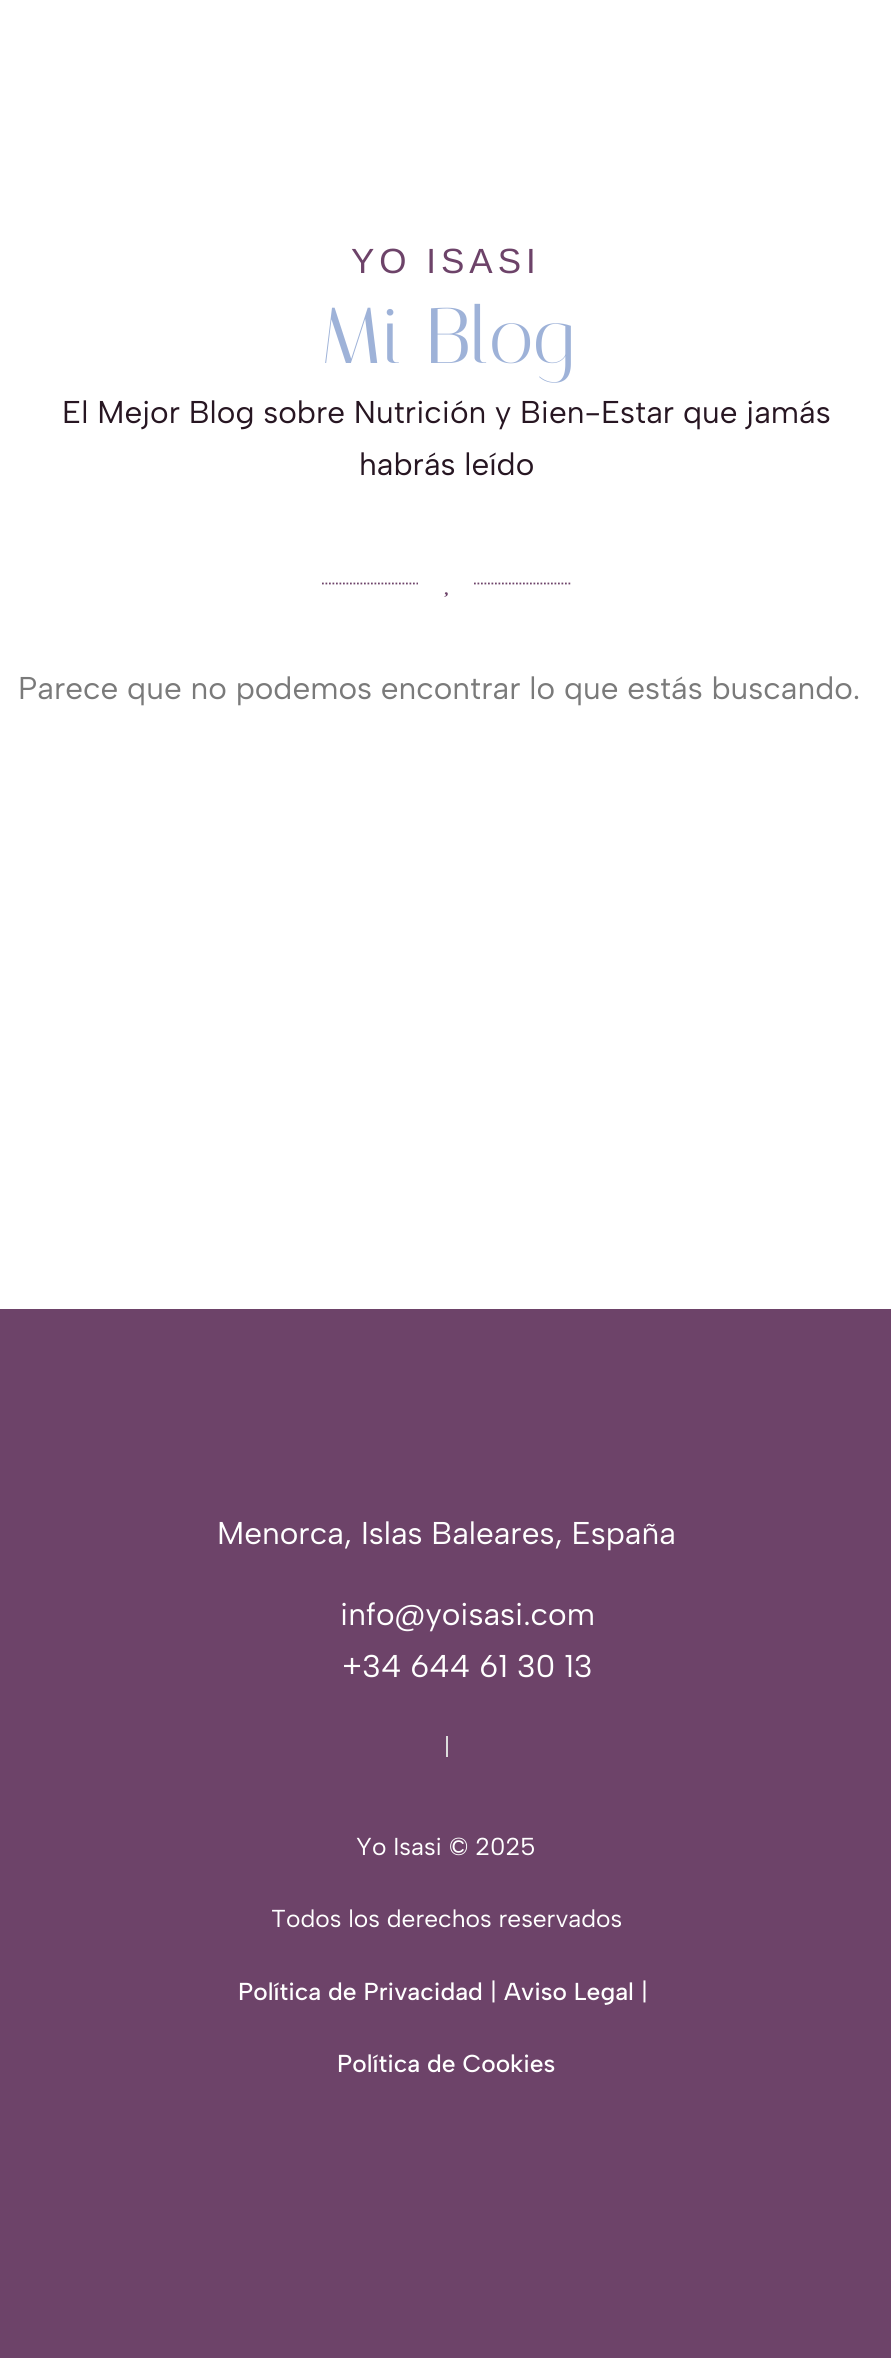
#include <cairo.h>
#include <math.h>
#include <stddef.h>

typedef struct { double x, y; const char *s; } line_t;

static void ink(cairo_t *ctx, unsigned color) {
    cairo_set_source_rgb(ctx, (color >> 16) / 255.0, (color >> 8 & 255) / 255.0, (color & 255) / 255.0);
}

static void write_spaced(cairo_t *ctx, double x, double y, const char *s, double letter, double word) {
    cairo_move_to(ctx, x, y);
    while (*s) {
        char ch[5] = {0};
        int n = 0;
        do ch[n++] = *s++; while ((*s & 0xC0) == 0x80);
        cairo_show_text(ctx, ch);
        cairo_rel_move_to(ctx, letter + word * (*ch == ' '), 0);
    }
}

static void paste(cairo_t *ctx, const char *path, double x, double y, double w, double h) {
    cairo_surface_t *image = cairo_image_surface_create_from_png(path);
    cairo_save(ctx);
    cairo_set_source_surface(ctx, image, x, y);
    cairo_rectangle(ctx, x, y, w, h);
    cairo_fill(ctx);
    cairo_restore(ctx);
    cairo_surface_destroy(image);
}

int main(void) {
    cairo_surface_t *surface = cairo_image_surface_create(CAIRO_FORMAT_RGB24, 891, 2358);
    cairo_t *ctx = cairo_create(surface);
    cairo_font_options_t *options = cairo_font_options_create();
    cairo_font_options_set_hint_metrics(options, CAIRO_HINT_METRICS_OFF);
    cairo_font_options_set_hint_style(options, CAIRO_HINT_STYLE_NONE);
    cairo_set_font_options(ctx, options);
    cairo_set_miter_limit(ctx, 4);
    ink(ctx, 0xFFFFFF);
    cairo_paint(ctx);
    cairo_select_font_face(ctx, "Liberation Sans", CAIRO_FONT_SLANT_NORMAL, CAIRO_FONT_WEIGHT_NORMAL);
    cairo_set_font_size(ctx, 35);
    ink(ctx, 0x6D4369);
    write_spaced(ctx, 351, 273, "YO ISASI", 5, 0);
    cairo_select_font_face(ctx, "Italiana", CAIRO_FONT_SLANT_NORMAL, CAIRO_FONT_WEIGHT_NORMAL);
    cairo_set_font_size(ctx, 79);
    ink(ctx, 0x9EB2D8);
    cairo_move_to(ctx, 320, 363);
    cairo_show_text(ctx, "Mi Blog");
    cairo_select_font_face(ctx, "Albert Sans", CAIRO_FONT_SLANT_NORMAL, CAIRO_FONT_WEIGHT_NORMAL);
    cairo_set_font_size(ctx, 31.5);
    ink(ctx, 0x271622);
    cairo_move_to(ctx, 62, 423);
    cairo_show_text(ctx, "El Mejor Blog sobre Nutrición y Bien-Estar que jamás");
    cairo_move_to(ctx, 359, 475);
    cairo_show_text(ctx, "habrás leído");
    cairo_new_path(ctx);
    cairo_move_to(ctx, 322, 583.5);
    cairo_line_to(ctx, 418, 583.5);
    ink(ctx, 0x6D4369);
    cairo_set_line_width(ctx, 1.8);
    cairo_set_dash(ctx, (double[]){1.75, 1.75}, 2, 0);
    cairo_stroke(ctx);
    cairo_new_path(ctx);
    cairo_move_to(ctx, 474, 583.5);
    cairo_line_to(ctx, 570.5, 583.5);
    cairo_stroke(ctx);
    paste(ctx, "media/1.png", 444, 592, 4, 5);
    ink(ctx, 0x7A7A7A);
    cairo_move_to(ctx, 18, 699);
    cairo_show_text(ctx, "Parece que no podemos encontrar lo que estás buscando.");
    ink(ctx, 0x6D4369);
    cairo_rectangle(ctx, 0, 1309, 891, 1049);
    cairo_fill(ctx);
    ink(ctx, 0xFFFFFF);
    {
        static const line_t items[] = {
            {217, 1544, "Menorca, Islas Baleares, España"},
            {340, 1625, "info@yoisasi.com"},
            {342, 1677, "+34 644 61 30 13"},
        };
        for (size_t i = 0; i < sizeof items / sizeof *items; i++) {
            cairo_move_to(ctx, items[i].x, items[i].y);
            cairo_show_text(ctx, items[i].s);
        }
    }
    ink(ctx, 0xDDDDDD);
    cairo_rectangle(ctx, 446, 1736, 2, 21);
    cairo_fill(ctx);
    cairo_set_font_size(ctx, 24.5);
    ink(ctx, 0xFFFFFF);
    cairo_move_to(ctx, 356, 1855);
    cairo_show_text(ctx, "Yo Isasi © 2025");
    cairo_move_to(ctx, 271, 1927);
    cairo_show_text(ctx, "Todos los derechos reservados");
    cairo_select_font_face(ctx, "Albert Sans Medium", CAIRO_FONT_SLANT_NORMAL, CAIRO_FONT_WEIGHT_NORMAL);
    cairo_move_to(ctx, 238, 2000);
    cairo_show_text(ctx, "Política de Privacidad");
    cairo_select_font_face(ctx, "Albert Sans", CAIRO_FONT_SLANT_NORMAL, CAIRO_FONT_WEIGHT_NORMAL);
    cairo_move_to(ctx, 490, 2000);
    cairo_show_text(ctx, "|");
    cairo_select_font_face(ctx, "Albert Sans Medium", CAIRO_FONT_SLANT_NORMAL, CAIRO_FONT_WEIGHT_NORMAL);
    cairo_move_to(ctx, 504, 2000);
    cairo_show_text(ctx, "Aviso Legal");
    cairo_select_font_face(ctx, "Albert Sans", CAIRO_FONT_SLANT_NORMAL, CAIRO_FONT_WEIGHT_NORMAL);
    cairo_move_to(ctx, 641, 2000);
    cairo_show_text(ctx, "|");
    cairo_select_font_face(ctx, "Albert Sans Medium", CAIRO_FONT_SLANT_NORMAL, CAIRO_FONT_WEIGHT_NORMAL);
    cairo_move_to(ctx, 337, 2072);
    cairo_show_text(ctx, "Política de Cookies");
    cairo_surface_write_to_png(surface, "image.png");
    cairo_font_options_destroy(options);
    cairo_destroy(ctx);
    cairo_surface_destroy(surface);
    return 0;
}
